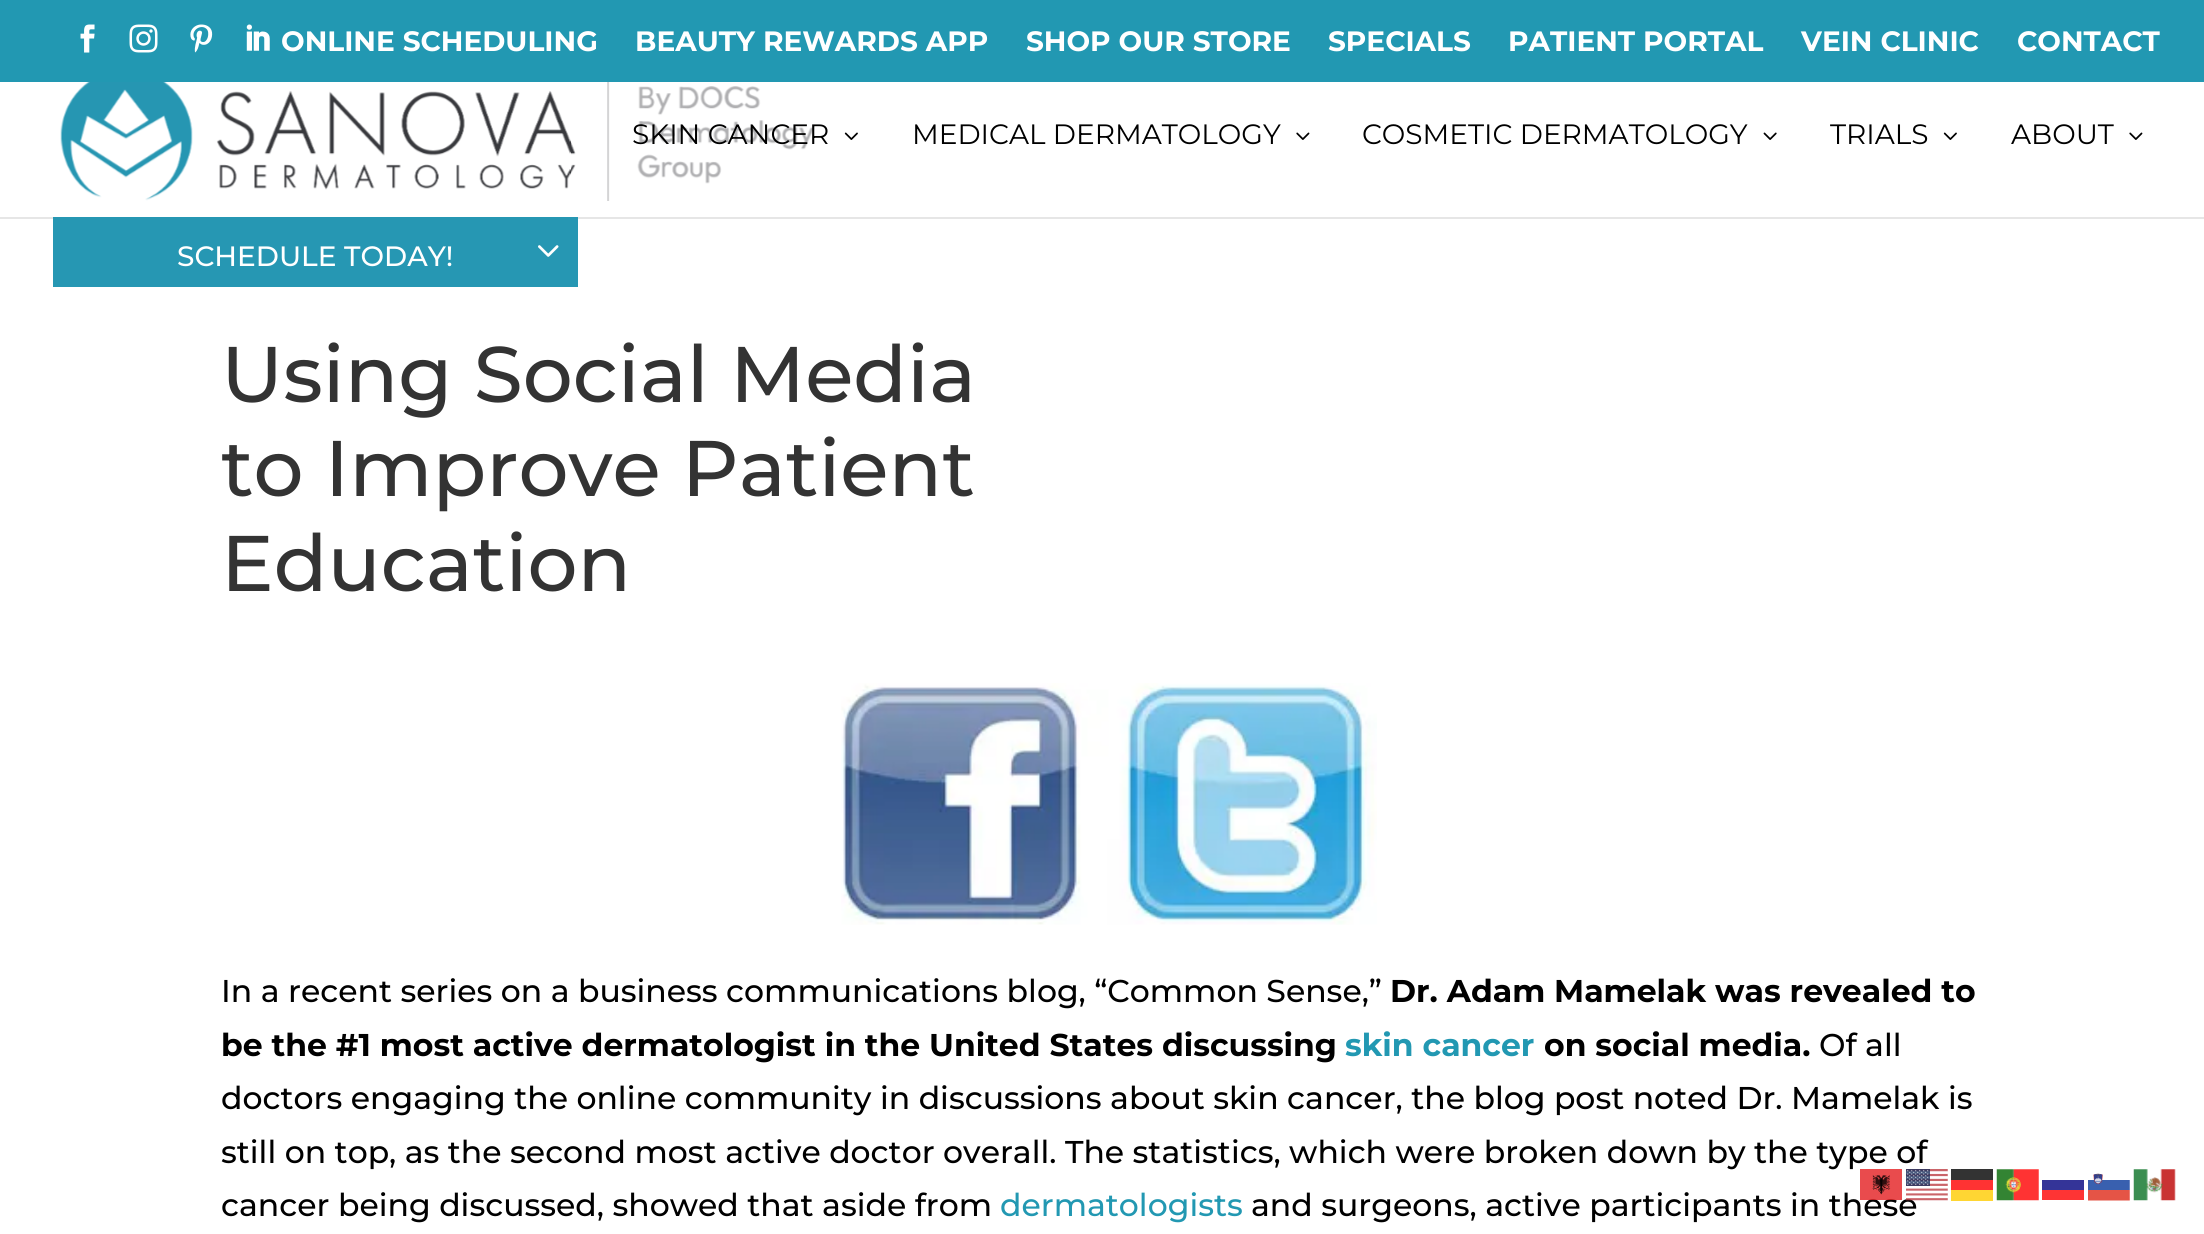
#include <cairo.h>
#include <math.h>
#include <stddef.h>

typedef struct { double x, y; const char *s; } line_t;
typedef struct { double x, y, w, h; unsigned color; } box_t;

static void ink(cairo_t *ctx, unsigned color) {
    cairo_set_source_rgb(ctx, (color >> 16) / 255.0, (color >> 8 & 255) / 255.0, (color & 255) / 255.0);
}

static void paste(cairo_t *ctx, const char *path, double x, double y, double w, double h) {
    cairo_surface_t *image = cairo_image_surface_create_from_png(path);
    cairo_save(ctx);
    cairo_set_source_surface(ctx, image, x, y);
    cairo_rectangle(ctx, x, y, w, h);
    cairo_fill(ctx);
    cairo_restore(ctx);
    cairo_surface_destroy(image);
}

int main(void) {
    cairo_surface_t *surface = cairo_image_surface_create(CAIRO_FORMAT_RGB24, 2204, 1234);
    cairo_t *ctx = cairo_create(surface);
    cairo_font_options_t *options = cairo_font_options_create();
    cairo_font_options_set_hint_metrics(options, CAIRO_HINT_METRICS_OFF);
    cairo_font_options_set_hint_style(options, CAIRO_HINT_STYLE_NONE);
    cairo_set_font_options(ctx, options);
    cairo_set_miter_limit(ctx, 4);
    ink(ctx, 0xFFFFFF);
    cairo_paint(ctx);
    ink(ctx, 0x2298B2);
    cairo_rectangle(ctx, 0, 0, 2204, 82);
    cairo_fill(ctx);
    paste(ctx, "media/1.png", 80, 24, 15, 29);
    paste(ctx, "media/2.png", 129, 24, 29, 29);
    paste(ctx, "media/3.png", 190, 24, 23, 29);
    paste(ctx, "media/4.png", 246, 24, 24, 27);
    cairo_select_font_face(ctx, "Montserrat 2 Thin", CAIRO_FONT_SLANT_NORMAL, CAIRO_FONT_WEIGHT_NORMAL);
    cairo_set_font_size(ctx, 28);
    ink(ctx, 0xFFFFFF);
    {
        static const line_t items[] = {
            {281, 51, "ONLINE SCHEDULING"},
            {635, 51, "BEAUTY REWARDS APP"},
            {1026, 51, "SHOP OUR STORE"},
            {1328, 51, "SPECIALS"},
            {1508, 51, "PATIENT PORTAL"},
            {1801, 51, "VEIN CLINIC"},
            {2017, 51, "CONTACT"},
        };
        for (size_t i = 0; i < sizeof items / sizeof *items; i++) {
            cairo_move_to(ctx, items[i].x, items[i].y);
            cairo_show_text(ctx, items[i].s);
        }
    }
    ink(ctx, 0xE6E6E6);
    cairo_rectangle(ctx, 0, 217, 2204, 2);
    cairo_fill(ctx);
    paste(ctx, "media/5.png", 60, 82, 755, 119);
    cairo_select_font_face(ctx, "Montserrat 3 Thin", CAIRO_FONT_SLANT_NORMAL, CAIRO_FONT_WEIGHT_NORMAL);
    ink(ctx, 0x000000);
    cairo_move_to(ctx, 632, 144);
    cairo_show_text(ctx, "SKIN CANCER");
    paste(ctx, "media/6.png", 844, 132, 14, 8);
    cairo_move_to(ctx, 912, 144);
    cairo_show_text(ctx, "MEDICAL DERMATOLOGY");
    paste(ctx, "media/7.png", 1296, 132, 14, 8);
    cairo_move_to(ctx, 1362, 144);
    cairo_show_text(ctx, "COSMETIC DERMATOLOGY");
    paste(ctx, "media/8.png", 1763, 132, 14, 8);
    cairo_move_to(ctx, 1830, 144);
    cairo_show_text(ctx, "TRIALS");
    paste(ctx, "media/6.png", 1943, 132, 14, 8);
    cairo_move_to(ctx, 2011, 144);
    cairo_show_text(ctx, "ABOUT");
    paste(ctx, "media/7.png", 2129, 132, 14, 8);
    ink(ctx, 0x2697B3);
    cairo_rectangle(ctx, 53, 217, 525, 70);
    cairo_fill(ctx);
    cairo_select_font_face(ctx, "Montserrat Thin", CAIRO_FONT_SLANT_NORMAL, CAIRO_FONT_WEIGHT_NORMAL);
    ink(ctx, 0xFFFFFF);
    cairo_move_to(ctx, 177, 266);
    cairo_show_text(ctx, "SCHEDULE TODAY!");
    paste(ctx, "media/9.png", 538, 245, 21, 12);
    cairo_set_font_size(ctx, 78.75);
    ink(ctx, 0x333333);
    {
        static const line_t items[] = {
            {221, 402, "Using Social Media"},
            {221, 496, "to Improve Patient"},
            {221, 591, "Education"},
        };
        for (size_t i = 0; i < sizeof items / sizeof *items; i++) {
            cairo_move_to(ctx, items[i].x, items[i].y);
            cairo_show_text(ctx, items[i].s);
        }
    }
    paste(ctx, "media/10.png", 841, 683, 536, 242);
    cairo_set_font_size(ctx, 31.5);
    ink(ctx, 0x000000);
    cairo_move_to(ctx, 221, 1002);
    cairo_show_text(ctx, "In a recent series on a business communications blog, “Common Sense,”");
    cairo_select_font_face(ctx, "Montserrat 2 Thin", CAIRO_FONT_SLANT_NORMAL, CAIRO_FONT_WEIGHT_NORMAL);
    cairo_move_to(ctx, 1390, 1002);
    cairo_show_text(ctx, "Dr. Adam Mamelak was revealed to");
    cairo_move_to(ctx, 221, 1056);
    cairo_show_text(ctx, "be the #1 most active dermatologist in the United States discussing");
    ink(ctx, 0x2298B2);
    cairo_move_to(ctx, 1345, 1056);
    cairo_show_text(ctx, "skin cancer");
    ink(ctx, 0x000000);
    cairo_move_to(ctx, 1544, 1056);
    cairo_show_text(ctx, "on social media.");
    cairo_select_font_face(ctx, "Montserrat Thin", CAIRO_FONT_SLANT_NORMAL, CAIRO_FONT_WEIGHT_NORMAL);
    {
        static const line_t items[] = {
            {1819, 1056, "Of all"},
            {221, 1109, "doctors engaging the online community in discussions about skin cancer, the blog post noted Dr. Mamelak is"},
            {221, 1163, "still on top, as the second most active doctor overall. The statistics, which were broken down by the type of"},
            {221, 1216, "cancer being discussed, showed that aside from"},
        };
        for (size_t i = 0; i < sizeof items / sizeof *items; i++) {
            cairo_move_to(ctx, items[i].x, items[i].y);
            cairo_show_text(ctx, items[i].s);
        }
    }
    ink(ctx, 0x2298B2);
    cairo_move_to(ctx, 1000, 1216);
    cairo_show_text(ctx, "dermatologists");
    ink(ctx, 0x000000);
    cairo_move_to(ctx, 1251, 1216);
    cairo_show_text(ctx, "and surgeons, active participants in these");
    paste(ctx, "media/11.png", 1860, 1169, 42, 31);
    paste(ctx, "media/12.png", 1906, 1169, 42, 32);
    ink(ctx, 0x333333);
    cairo_rectangle(ctx, 1951, 1169, 42, 11);
    cairo_fill(ctx);
    paste(ctx, "media/13.png", 1996, 1169, 43, 32);
    paste(ctx, "media/14.png", 2088, 1173, 42, 28);
    paste(ctx, "media/15.png", 2133, 1169, 43, 32);
    {
        static const box_t items[] = {
            {1951, 1180, 42, 10, 0xFF3333},
            {2042, 1180, 42, 10, 0x343498},
            {1951, 1190, 42, 11, 0xFFD633},
            {2042, 1190, 42, 10, 0xFE3434},
        };
        for (size_t i = 0; i < sizeof items / sizeof *items; i++) {
            ink(ctx, items[i].color);
            cairo_rectangle(ctx, items[i].x, items[i].y, items[i].w, items[i].h);
            cairo_fill(ctx);
        }
    }
    cairo_surface_write_to_png(surface, "image.png");
    cairo_font_options_destroy(options);
    cairo_destroy(ctx);
    cairo_surface_destroy(surface);
    return 0;
}
